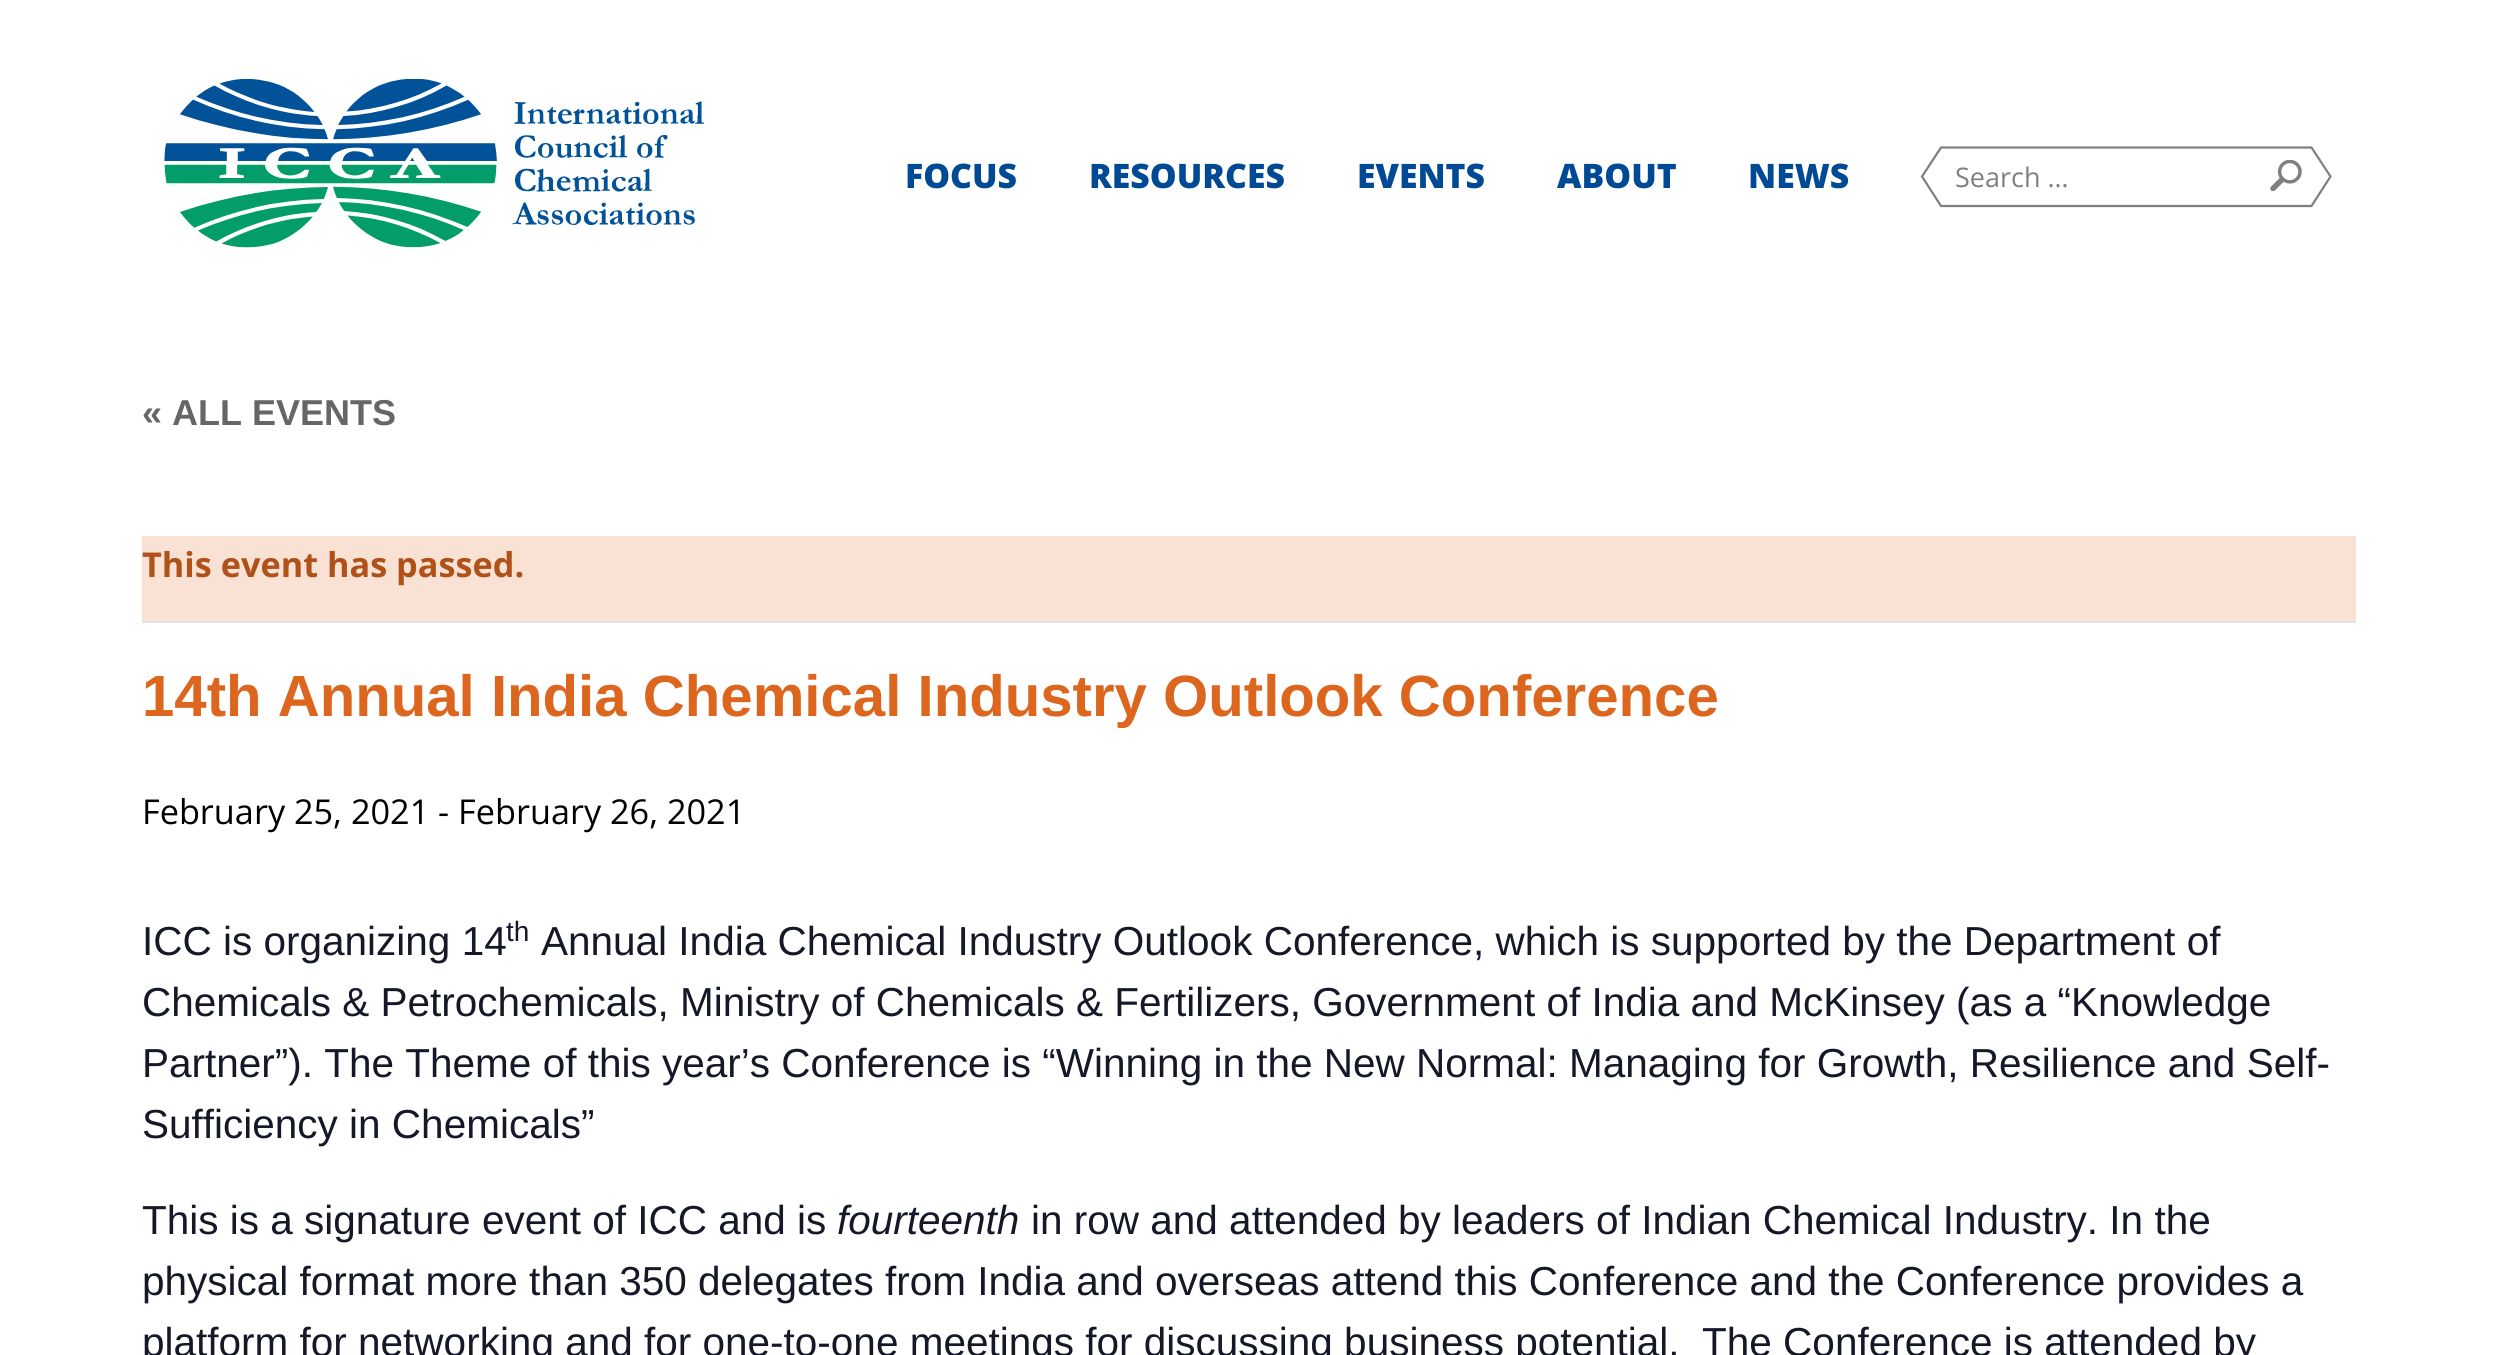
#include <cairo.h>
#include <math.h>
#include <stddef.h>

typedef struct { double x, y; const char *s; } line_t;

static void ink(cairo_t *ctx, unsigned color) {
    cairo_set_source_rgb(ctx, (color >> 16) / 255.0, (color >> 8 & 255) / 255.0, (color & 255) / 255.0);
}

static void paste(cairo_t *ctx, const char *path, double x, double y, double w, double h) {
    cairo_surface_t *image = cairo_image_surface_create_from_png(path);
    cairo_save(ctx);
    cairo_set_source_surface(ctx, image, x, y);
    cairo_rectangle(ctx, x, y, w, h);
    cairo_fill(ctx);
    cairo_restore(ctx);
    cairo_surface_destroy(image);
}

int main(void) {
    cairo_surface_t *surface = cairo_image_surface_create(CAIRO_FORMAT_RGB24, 2496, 1355);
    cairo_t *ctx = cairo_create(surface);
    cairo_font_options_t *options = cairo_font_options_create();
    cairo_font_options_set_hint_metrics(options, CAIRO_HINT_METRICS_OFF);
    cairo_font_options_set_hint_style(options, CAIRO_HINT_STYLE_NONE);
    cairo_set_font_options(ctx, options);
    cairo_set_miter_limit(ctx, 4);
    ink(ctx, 0xFFFFFF);
    cairo_paint(ctx);
    paste(ctx, "media/1.png", 164, 79, 540, 169);
    cairo_select_font_face(ctx, "Open Sans ExtraBold", CAIRO_FONT_SLANT_NORMAL, CAIRO_FONT_WEIGHT_NORMAL);
    cairo_set_font_size(ctx, 33.75);
    ink(ctx, 0x004994);
    {
        static const line_t items[] = {
            {905, 188, "FOCUS"},
            {1089, 188, "RESOURCES"},
            {1357, 188, "EVENTS"},
            {1557, 188, "ABOUT"},
            {1748, 188, "NEWS"},
        };
        for (size_t i = 0; i < sizeof items / sizeof *items; i++) {
            cairo_move_to(ctx, items[i].x, items[i].y);
            cairo_show_text(ctx, items[i].s);
        }
    }
    cairo_new_path(ctx);
    cairo_move_to(ctx, 2311.5, 147.5);
    cairo_line_to(ctx, 1941, 147.5);
    cairo_line_to(ctx, 1922, 176.5);
    cairo_line_to(ctx, 1941, 206);
    cairo_line_to(ctx, 2311.5, 206);
    cairo_line_to(ctx, 2330.5, 176.5);
    cairo_close_path(ctx);
    ink(ctx, 0x7F7F7F);
    cairo_set_line_width(ctx, 2.2);
    cairo_stroke(ctx);
    cairo_select_font_face(ctx, "Open Sans", CAIRO_FONT_SLANT_NORMAL, CAIRO_FONT_WEIGHT_NORMAL);
    cairo_set_font_size(ctx, 27);
    cairo_move_to(ctx, 1955, 187);
    cairo_show_text(ctx, "Search …");
    paste(ctx, "media/2.png", 2270, 160, 32, 31);
    cairo_select_font_face(ctx, "Liberation Sans", CAIRO_FONT_SLANT_NORMAL, CAIRO_FONT_WEIGHT_BOLD);
    cairo_set_font_size(ctx, 36);
    ink(ctx, 0x666666);
    cairo_move_to(ctx, 142, 425);
    cairo_show_text(ctx, "« ALL EVENTS");
    ink(ctx, 0xF9E1D3);
    cairo_rectangle(ctx, 142, 536, 2214, 85);
    cairo_fill(ctx);
    ink(ctx, 0xE4E4E4);
    cairo_rectangle(ctx, 142, 621, 2214, 2);
    cairo_fill(ctx);
    cairo_select_font_face(ctx, "Open Sans", CAIRO_FONT_SLANT_NORMAL, CAIRO_FONT_WEIGHT_BOLD);
    cairo_set_font_size(ctx, 34.25);
    ink(ctx, 0xAF5118);
    cairo_move_to(ctx, 142, 577);
    cairo_show_text(ctx, "This event has passed.");
    cairo_select_font_face(ctx, "Liberation Sans", CAIRO_FONT_SLANT_NORMAL, CAIRO_FONT_WEIGHT_BOLD);
    cairo_set_font_size(ctx, 58.15);
    ink(ctx, 0xDC661E);
    cairo_move_to(ctx, 142, 716);
    cairo_show_text(ctx, "14th Annual India Chemical Industry Outlook Conference");
    cairo_select_font_face(ctx, "Open Sans", CAIRO_FONT_SLANT_NORMAL, CAIRO_FONT_WEIGHT_NORMAL);
    cairo_set_font_size(ctx, 34.25);
    ink(ctx, 0x000000);
    cairo_move_to(ctx, 142, 824);
    cairo_show_text(ctx, "February 25, 2021 - February 26, 2021");
    cairo_select_font_face(ctx, "Liberation Sans", CAIRO_FONT_SLANT_NORMAL, CAIRO_FONT_WEIGHT_NORMAL);
    cairo_set_font_size(ctx, 40.5);
    ink(ctx, 0x141827);
    cairo_move_to(ctx, 142, 955);
    cairo_show_text(ctx, "ICC is organizing 14");
    cairo_set_font_size(ctx, 28);
    cairo_move_to(ctx, 506, 941);
    cairo_show_text(ctx, "th");
    cairo_set_font_size(ctx, 40.5);
    {
        static const line_t items[] = {
            {541, 955, "Annual India Chemical Industry Outlook Conference, which is supported by the Department of"},
            {142, 1016, "Chemicals & Petrochemicals, Ministry of Chemicals & Fertilizers, Government of India and McKinsey (as a “Knowledge"},
            {142, 1077, "Partner”). The Theme of this year’s Conference is “Winning in the New Normal: Managing for Growth, Resilience and Self-"},
            {142, 1138, "Sufficiency in Chemicals”"},
            {142, 1234, "This is a signature event of ICC and is"},
        };
        for (size_t i = 0; i < sizeof items / sizeof *items; i++) {
            cairo_move_to(ctx, items[i].x, items[i].y);
            cairo_show_text(ctx, items[i].s);
        }
    }
    cairo_select_font_face(ctx, "Liberation Sans", CAIRO_FONT_SLANT_ITALIC, CAIRO_FONT_WEIGHT_NORMAL);
    cairo_move_to(ctx, 837, 1234);
    cairo_show_text(ctx, "fourteenth");
    cairo_select_font_face(ctx, "Liberation Sans", CAIRO_FONT_SLANT_NORMAL, CAIRO_FONT_WEIGHT_NORMAL);
    {
        static const line_t items[] = {
            {1031, 1234, "in row and attended by leaders of Indian Chemical Industry. In the"},
            {142, 1295, "physical format more than 350 delegates from India and overseas attend this Conference and the Conference provides a"},
            {142, 1356, "platform for networking and for one-to-one meetings for discussing business potential.  The Conference is attended by"},
        };
        for (size_t i = 0; i < sizeof items / sizeof *items; i++) {
            cairo_move_to(ctx, items[i].x, items[i].y);
            cairo_show_text(ctx, items[i].s);
        }
    }
    cairo_surface_write_to_png(surface, "image.png");
    cairo_font_options_destroy(options);
    cairo_destroy(ctx);
    cairo_surface_destroy(surface);
    return 0;
}
